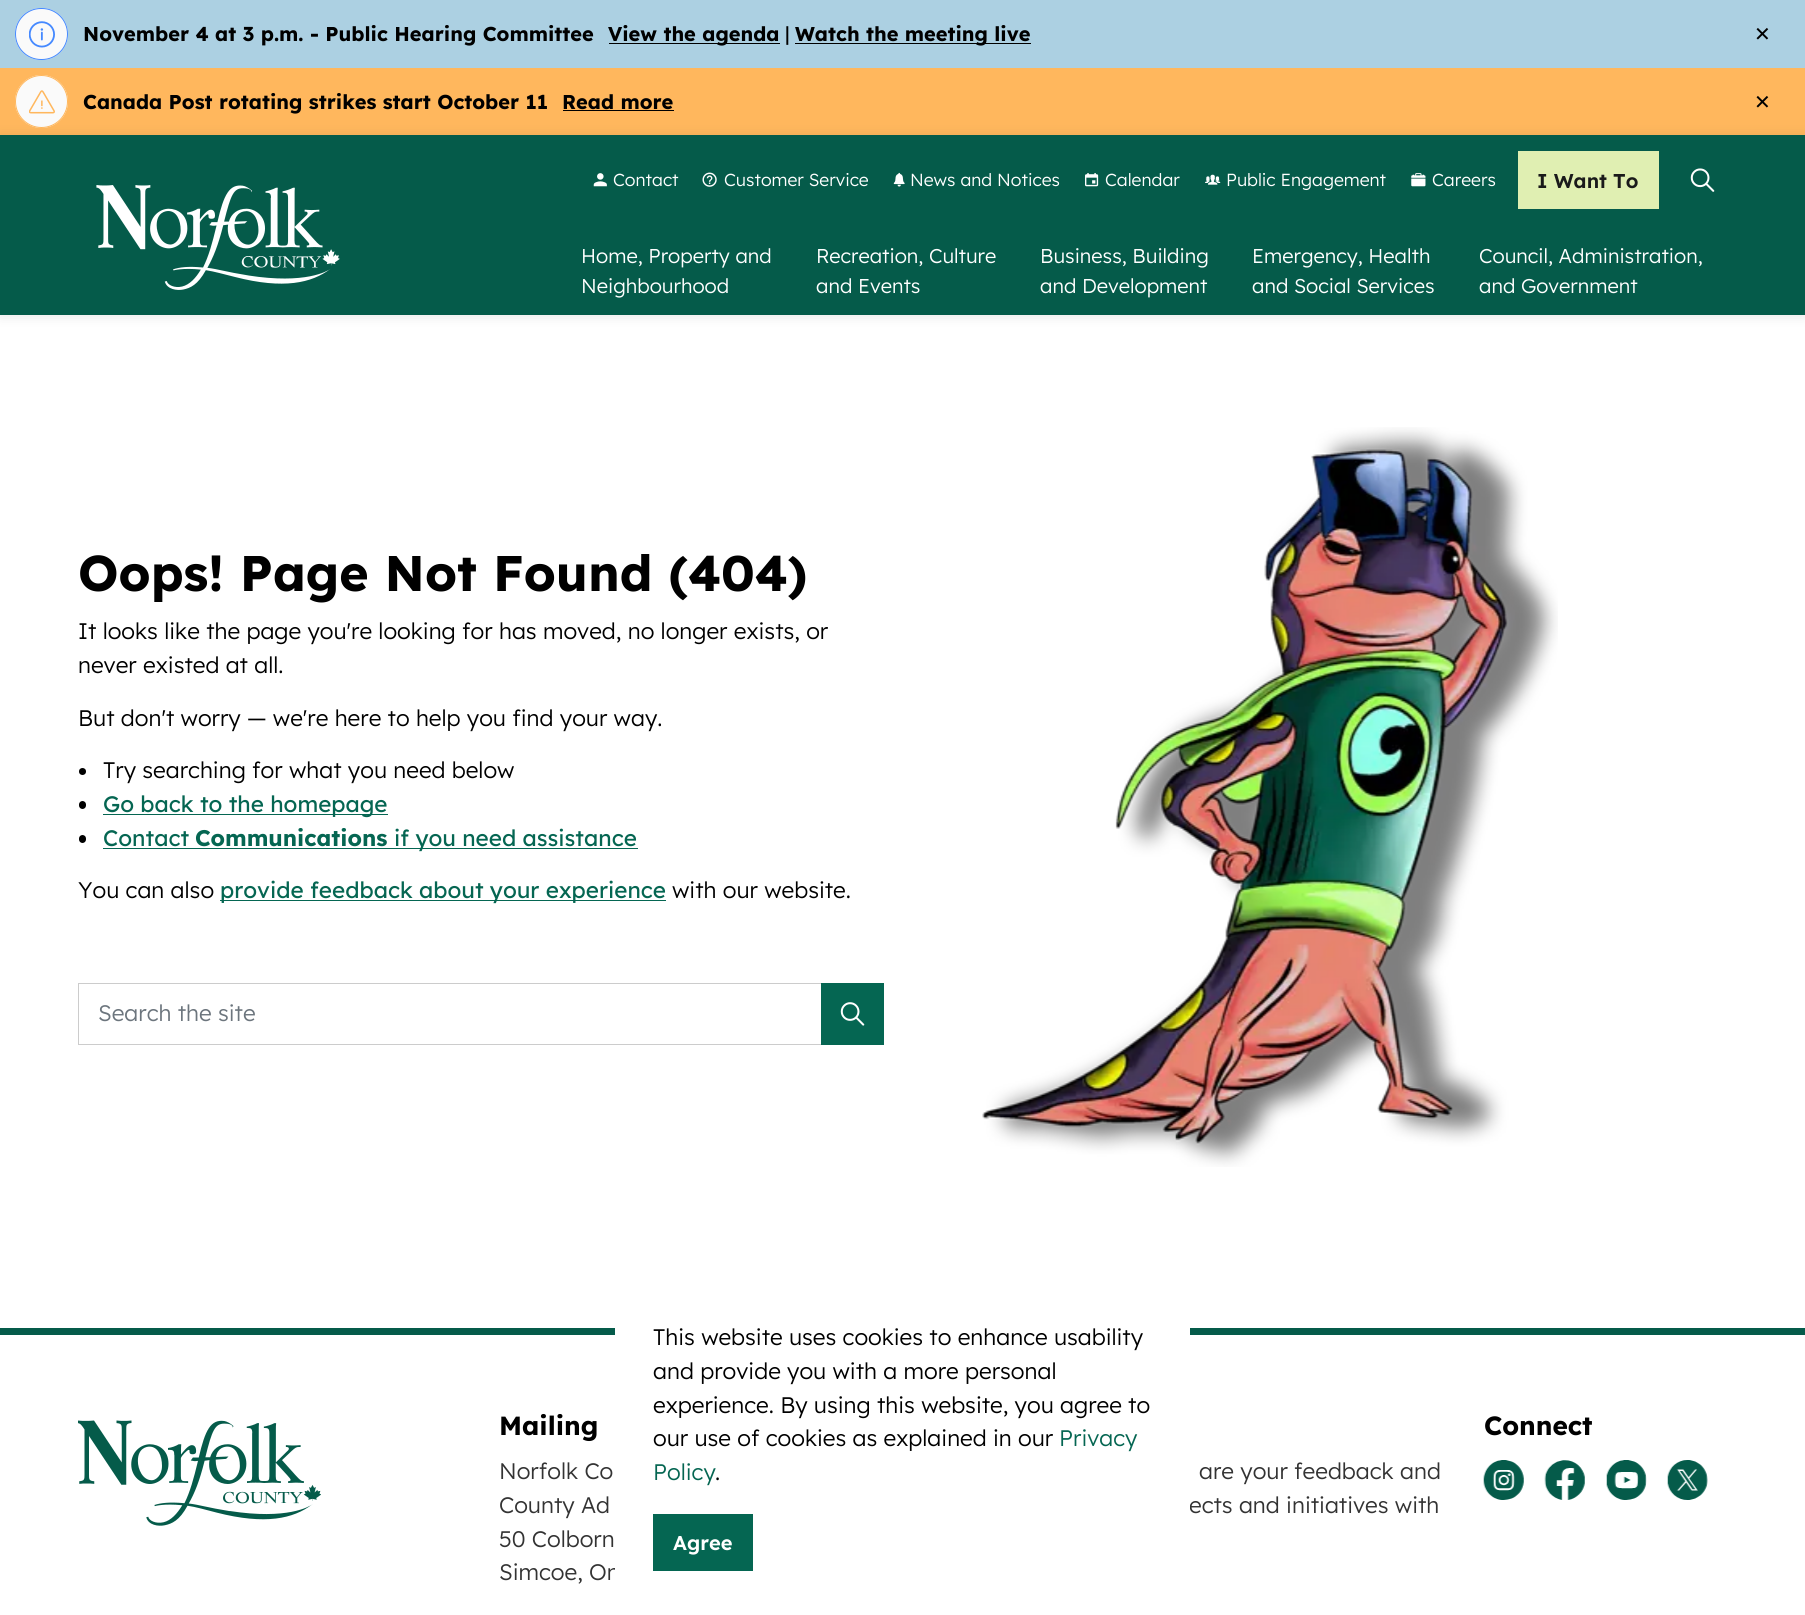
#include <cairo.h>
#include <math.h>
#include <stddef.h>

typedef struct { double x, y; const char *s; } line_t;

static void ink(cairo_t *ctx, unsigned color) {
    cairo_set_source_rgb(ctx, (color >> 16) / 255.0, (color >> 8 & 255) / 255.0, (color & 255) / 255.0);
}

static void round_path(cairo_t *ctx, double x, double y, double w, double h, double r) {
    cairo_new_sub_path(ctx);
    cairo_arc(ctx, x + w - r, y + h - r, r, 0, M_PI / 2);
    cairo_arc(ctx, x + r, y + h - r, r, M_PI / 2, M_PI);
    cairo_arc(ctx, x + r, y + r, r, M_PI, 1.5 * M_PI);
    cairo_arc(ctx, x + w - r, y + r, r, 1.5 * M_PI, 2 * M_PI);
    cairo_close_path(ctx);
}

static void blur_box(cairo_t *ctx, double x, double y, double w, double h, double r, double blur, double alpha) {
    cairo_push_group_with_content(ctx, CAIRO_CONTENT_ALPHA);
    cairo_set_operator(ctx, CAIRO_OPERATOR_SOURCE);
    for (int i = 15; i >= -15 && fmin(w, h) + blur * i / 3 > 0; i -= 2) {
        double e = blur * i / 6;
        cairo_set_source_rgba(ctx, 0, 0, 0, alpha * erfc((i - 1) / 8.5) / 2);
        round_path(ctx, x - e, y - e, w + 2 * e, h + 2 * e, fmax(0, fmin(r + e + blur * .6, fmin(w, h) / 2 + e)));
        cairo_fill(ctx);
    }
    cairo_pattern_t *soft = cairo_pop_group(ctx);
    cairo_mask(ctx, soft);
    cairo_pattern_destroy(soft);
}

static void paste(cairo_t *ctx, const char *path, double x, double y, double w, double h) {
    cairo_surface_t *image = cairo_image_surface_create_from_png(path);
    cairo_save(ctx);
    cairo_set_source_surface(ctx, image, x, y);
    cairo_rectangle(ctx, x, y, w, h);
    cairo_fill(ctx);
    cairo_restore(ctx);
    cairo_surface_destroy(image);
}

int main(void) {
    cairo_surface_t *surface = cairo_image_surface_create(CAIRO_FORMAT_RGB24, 1805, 1615);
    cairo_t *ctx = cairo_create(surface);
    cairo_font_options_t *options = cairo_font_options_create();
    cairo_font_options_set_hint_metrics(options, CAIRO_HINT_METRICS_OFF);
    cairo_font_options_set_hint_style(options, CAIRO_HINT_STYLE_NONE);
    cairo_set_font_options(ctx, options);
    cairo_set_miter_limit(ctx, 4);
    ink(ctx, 0xFFFFFF);
    cairo_paint(ctx);
    ink(ctx, 0xACD0E2);
    cairo_rectangle(ctx, 0, 0, 1805, 68);
    cairo_fill(ctx);
    ink(ctx, 0xFAFAFA);
    round_path(ctx, 15, 8, 53, 52, 26);
    cairo_fill(ctx);
    paste(ctx, "media/1.png", 29, 21, 26, 27);
    round_path(ctx, 15.5, 8.5, 52, 51, 25.5);
    ink(ctx, 0x4589FF);
    cairo_set_line_width(ctx, 1);
    cairo_stroke(ctx);
    cairo_select_font_face(ctx, "Lexend", CAIRO_FONT_SLANT_NORMAL, CAIRO_FONT_WEIGHT_BOLD);
    cairo_set_font_size(ctx, 20);
    ink(ctx, 0x000000);
    cairo_move_to(ctx, 83, 41);
    cairo_show_text(ctx, "November 4 at 3 p.m. - Public Hearing Committee");
    cairo_rectangle(ctx, 609, 43, 171, 1);
    cairo_fill(ctx);
    cairo_move_to(ctx, 608, 41);
    cairo_show_text(ctx, "View the agenda");
    cairo_select_font_face(ctx, "Lexend", CAIRO_FONT_SLANT_NORMAL, CAIRO_FONT_WEIGHT_NORMAL);
    cairo_move_to(ctx, 785, 41);
    cairo_show_text(ctx, "|");
    cairo_rectangle(ctx, 795, 43, 236, 1);
    cairo_fill(ctx);
    cairo_select_font_face(ctx, "Lexend", CAIRO_FONT_SLANT_NORMAL, CAIRO_FONT_WEIGHT_BOLD);
    cairo_move_to(ctx, 795, 41);
    cairo_show_text(ctx, "Watch the meeting live");
    cairo_select_font_face(ctx, "DejaVu Sans", CAIRO_FONT_SLANT_NORMAL, CAIRO_FONT_WEIGHT_NORMAL);
    cairo_move_to(ctx, 1754, 41);
    cairo_show_text(ctx, "✕");
    ink(ctx, 0xFFB75D);
    cairo_rectangle(ctx, 0, 68, 1805, 67);
    cairo_fill(ctx);
    ink(ctx, 0xFAFAFA);
    cairo_arc(ctx, 41.5, 101.5, 26.5, 0, 2 * M_PI);
    cairo_fill(ctx);
    paste(ctx, "media/2.png", 29, 90, 26, 24);
    cairo_arc(ctx, 41.5, 101.5, 26, 0, 2 * M_PI);
    ink(ctx, 0xFFB75D);
    cairo_stroke(ctx);
    cairo_select_font_face(ctx, "Lexend", CAIRO_FONT_SLANT_NORMAL, CAIRO_FONT_WEIGHT_BOLD);
    ink(ctx, 0x000000);
    cairo_move_to(ctx, 83, 109);
    cairo_show_text(ctx, "Canada Post rotating strikes start October 11");
    cairo_move_to(ctx, 562, 109);
    cairo_show_text(ctx, "Read more");
    cairo_rectangle(ctx, 563, 110, 111, 1);
    cairo_fill(ctx);
    cairo_select_font_face(ctx, "DejaVu Sans", CAIRO_FONT_SLANT_NORMAL, CAIRO_FONT_WEIGHT_NORMAL);
    cairo_move_to(ctx, 1754, 109);
    cairo_show_text(ctx, "✕");
    ink(ctx, 0x000000);
    blur_box(ctx, 0, 136, 1805, 180, 0, 6, 0.1);
    ink(ctx, 0x055B4A);
    cairo_rectangle(ctx, 0, 135, 1805, 180);
    cairo_fill(ctx);
    paste(ctx, "media/3.png", 593, 173, 14, 14);
    cairo_select_font_face(ctx, "Lexend Light", CAIRO_FONT_SLANT_NORMAL, CAIRO_FONT_WEIGHT_NORMAL);
    cairo_set_font_size(ctx, 17.5);
    ink(ctx, 0xFFFFFF);
    cairo_move_to(ctx, 613, 186);
    cairo_show_text(ctx, "Contact");
    paste(ctx, "media/4.png", 702, 172, 15, 15);
    cairo_move_to(ctx, 724, 186);
    cairo_show_text(ctx, "Customer Service");
    paste(ctx, "media/5.png", 893, 172, 12, 15);
    cairo_move_to(ctx, 910, 186);
    cairo_show_text(ctx, "News and Notices");
    paste(ctx, "media/6.png", 1085, 173, 14, 14);
    cairo_move_to(ctx, 1105, 186);
    cairo_show_text(ctx, "Calendar");
    paste(ctx, "media/7.png", 1205, 174, 16, 11);
    cairo_move_to(ctx, 1226, 186);
    cairo_show_text(ctx, "Public Engagement");
    paste(ctx, "media/8.png", 1411, 173, 15, 14);
    cairo_move_to(ctx, 1432, 186);
    cairo_show_text(ctx, "Careers");
    ink(ctx, 0xE0EFB2);
    cairo_rectangle(ctx, 1518, 151, 141, 58);
    cairo_fill(ctx);
    cairo_select_font_face(ctx, "Lexend SemiBold", CAIRO_FONT_SLANT_NORMAL, CAIRO_FONT_WEIGHT_NORMAL);
    cairo_set_font_size(ctx, 20);
    ink(ctx, 0x1A1A1A);
    cairo_move_to(ctx, 1537, 188);
    cairo_show_text(ctx, "I Want To");
    paste(ctx, "media/9.png", 1690, 168, 25, 24);
    paste(ctx, "media/10.png", 96, 185, 244, 105);
    cairo_select_font_face(ctx, "Lexend Light", CAIRO_FONT_SLANT_NORMAL, CAIRO_FONT_WEIGHT_NORMAL);
    ink(ctx, 0xFFFFFF);
    {
        static const line_t items[] = {
            {581, 263, "Home, Property and"},
            {581, 293, "Neighbourhood"},
            {816, 263, "Recreation, Culture"},
            {816, 293, "and Events"},
            {1040, 263, "Business, Building"},
            {1040, 293, "and Development"},
            {1252, 263, "Emergency, Health"},
            {1252, 293, "and Social Services"},
            {1479, 263, "Council, Administration,"},
            {1479, 293, "and Government"},
        };
        for (size_t i = 0; i < sizeof items / sizeof *items; i++) {
            cairo_move_to(ctx, items[i].x, items[i].y);
            cairo_show_text(ctx, items[i].s);
        }
    }
    cairo_select_font_face(ctx, "Lexend", CAIRO_FONT_SLANT_NORMAL, CAIRO_FONT_WEIGHT_BOLD);
    cairo_set_font_size(ctx, 50);
    ink(ctx, 0x000000);
    cairo_move_to(ctx, 78, 591);
    cairo_show_text(ctx, "Oops! Page Not Found (404)");
    cairo_select_font_face(ctx, "Lexend Light", CAIRO_FONT_SLANT_NORMAL, CAIRO_FONT_WEIGHT_NORMAL);
    cairo_set_font_size(ctx, 22.5);
    {
        static const line_t items[] = {
            {78, 639, "It looks like the page you're looking for has moved, no longer exists, or"},
            {78, 673, "never existed at all."},
            {78, 726, "But don't worry — we're here to help you find your way."},
        };
        for (size_t i = 0; i < sizeof items / sizeof *items; i++) {
            cairo_move_to(ctx, items[i].x, items[i].y);
            cairo_show_text(ctx, items[i].s);
        }
    }
    cairo_new_path(ctx);
    cairo_arc(ctx, 82.5, 771.5, 3.5, 0, 2 * M_PI);
    cairo_fill(ctx);
    cairo_move_to(ctx, 103, 778);
    cairo_show_text(ctx, "Try searching for what you need below");
    round_path(ctx, 79, 801, 7, 8, 3.5);
    cairo_fill(ctx);
    ink(ctx, 0x056652);
    cairo_rectangle(ctx, 103, 814, 285, 1);
    cairo_fill(ctx);
    cairo_select_font_face(ctx, "Lexend", CAIRO_FONT_SLANT_NORMAL, CAIRO_FONT_WEIGHT_NORMAL);
    cairo_move_to(ctx, 103, 812);
    cairo_show_text(ctx, "Go back to the homepage");
    ink(ctx, 0x000000);
    round_path(ctx, 79, 835, 7, 8, 3.5);
    cairo_fill(ctx);
    ink(ctx, 0x056652);
    cairo_move_to(ctx, 103, 846);
    cairo_show_text(ctx, "Contact");
    cairo_select_font_face(ctx, "Lexend", CAIRO_FONT_SLANT_NORMAL, CAIRO_FONT_WEIGHT_BOLD);
    cairo_move_to(ctx, 195, 846);
    cairo_show_text(ctx, "Communications");
    cairo_rectangle(ctx, 103, 848, 535, 1);
    cairo_fill(ctx);
    cairo_select_font_face(ctx, "Lexend", CAIRO_FONT_SLANT_NORMAL, CAIRO_FONT_WEIGHT_NORMAL);
    cairo_move_to(ctx, 394, 846);
    cairo_show_text(ctx, "if you need assistance");
    cairo_select_font_face(ctx, "Lexend Light", CAIRO_FONT_SLANT_NORMAL, CAIRO_FONT_WEIGHT_NORMAL);
    ink(ctx, 0x000000);
    cairo_move_to(ctx, 78, 898);
    cairo_show_text(ctx, "You can also");
    ink(ctx, 0x056652);
    cairo_rectangle(ctx, 220, 900, 446, 1);
    cairo_fill(ctx);
    cairo_select_font_face(ctx, "Lexend", CAIRO_FONT_SLANT_NORMAL, CAIRO_FONT_WEIGHT_NORMAL);
    cairo_move_to(ctx, 220, 898);
    cairo_show_text(ctx, "provide feedback about your experience");
    cairo_select_font_face(ctx, "Lexend Light", CAIRO_FONT_SLANT_NORMAL, CAIRO_FONT_WEIGHT_NORMAL);
    ink(ctx, 0x000000);
    cairo_move_to(ctx, 672, 898);
    cairo_show_text(ctx, "with our website.");
    cairo_rectangle(ctx, 78.5, 983.5, 805, 61);
    ink(ctx, 0xCCCCCC);
    cairo_stroke(ctx);
    ink(ctx, 0x6C757D);
    cairo_move_to(ctx, 98, 1021);
    cairo_show_text(ctx, "Search the site");
    ink(ctx, 0x056652);
    cairo_rectangle(ctx, 821, 983, 63, 62);
    cairo_fill(ctx);
    paste(ctx, "media/11.png", 840, 1002, 25, 24);
    paste(ctx, "media/12.png", 982, 427, 576, 740);
    ink(ctx, 0x055B4A);
    cairo_rectangle(ctx, 0, 1328, 1805, 7);
    cairo_fill(ctx);
    paste(ctx, "media/13.png", 78, 1420, 243, 106);
    cairo_select_font_face(ctx, "Lexend", CAIRO_FONT_SLANT_NORMAL, CAIRO_FONT_WEIGHT_BOLD);
    cairo_set_font_size(ctx, 26.25);
    ink(ctx, 0x000000);
    cairo_move_to(ctx, 499, 1435);
    cairo_show_text(ctx, "Mailing");
    cairo_select_font_face(ctx, "Lexend Light", CAIRO_FONT_SLANT_NORMAL, CAIRO_FONT_WEIGHT_NORMAL);
    cairo_set_font_size(ctx, 22.5);
    ink(ctx, 0x333333);
    {
        static const line_t items[] = {
            {499, 1479, "Norfolk Co"},
            {499, 1513, "County Ad"},
            {499, 1547, "50 Colborn"},
            {499, 1580, "Simcoe, On"},
            {1199, 1479, "are your feedback and"},
            {1189, 1513, "ects and initiatives with"},
        };
        for (size_t i = 0; i < sizeof items / sizeof *items; i++) {
            cairo_move_to(ctx, items[i].x, items[i].y);
            cairo_show_text(ctx, items[i].s);
        }
    }
    cairo_select_font_face(ctx, "Lexend", CAIRO_FONT_SLANT_NORMAL, CAIRO_FONT_WEIGHT_BOLD);
    cairo_set_font_size(ctx, 26.25);
    ink(ctx, 0x000000);
    cairo_move_to(ctx, 1484, 1435);
    cairo_show_text(ctx, "Connect");
    paste(ctx, "media/14.png", 1483, 1460, 41, 40);
    paste(ctx, "media/15.png", 1544, 1460, 41, 40);
    paste(ctx, "media/16.png", 1606, 1460, 41, 40);
    paste(ctx, "media/17.png", 1667, 1460, 41, 40);
    ink(ctx, 0xFFFFFF);
    cairo_rectangle(ctx, 615, 1328, 575, 252);
    cairo_fill(ctx);
    cairo_select_font_face(ctx, "Lexend Light", CAIRO_FONT_SLANT_NORMAL, CAIRO_FONT_WEIGHT_NORMAL);
    cairo_set_font_size(ctx, 22.5);
    ink(ctx, 0x000000);
    {
        static const line_t items[] = {
            {653, 1345, "This website uses cookies to enhance usability"},
            {653, 1379, "and provide you with a more personal"},
            {653, 1413, "experience. By using this website, you agree to"},
            {653, 1446, "our use of cookies as explained in our"},
        };
        for (size_t i = 0; i < sizeof items / sizeof *items; i++) {
            cairo_move_to(ctx, items[i].x, items[i].y);
            cairo_show_text(ctx, items[i].s);
        }
    }
    ink(ctx, 0x056652);
    cairo_move_to(ctx, 1059, 1446);
    cairo_show_text(ctx, "Privacy");
    cairo_move_to(ctx, 653, 1480);
    cairo_show_text(ctx, "Policy");
    ink(ctx, 0x000000);
    cairo_move_to(ctx, 715, 1480);
    cairo_show_text(ctx, ".");
    ink(ctx, 0x056652);
    cairo_rectangle(ctx, 653, 1514, 100, 57);
    cairo_fill(ctx);
    cairo_select_font_face(ctx, "Lexend SemiBold", CAIRO_FONT_SLANT_NORMAL, CAIRO_FONT_WEIGHT_NORMAL);
    cairo_set_font_size(ctx, 20);
    ink(ctx, 0xFFFFFF);
    cairo_move_to(ctx, 673, 1550);
    cairo_show_text(ctx, "Agree");
    cairo_surface_write_to_png(surface, "image.png");
    cairo_font_options_destroy(options);
    cairo_destroy(ctx);
    cairo_surface_destroy(surface);
    return 0;
}
